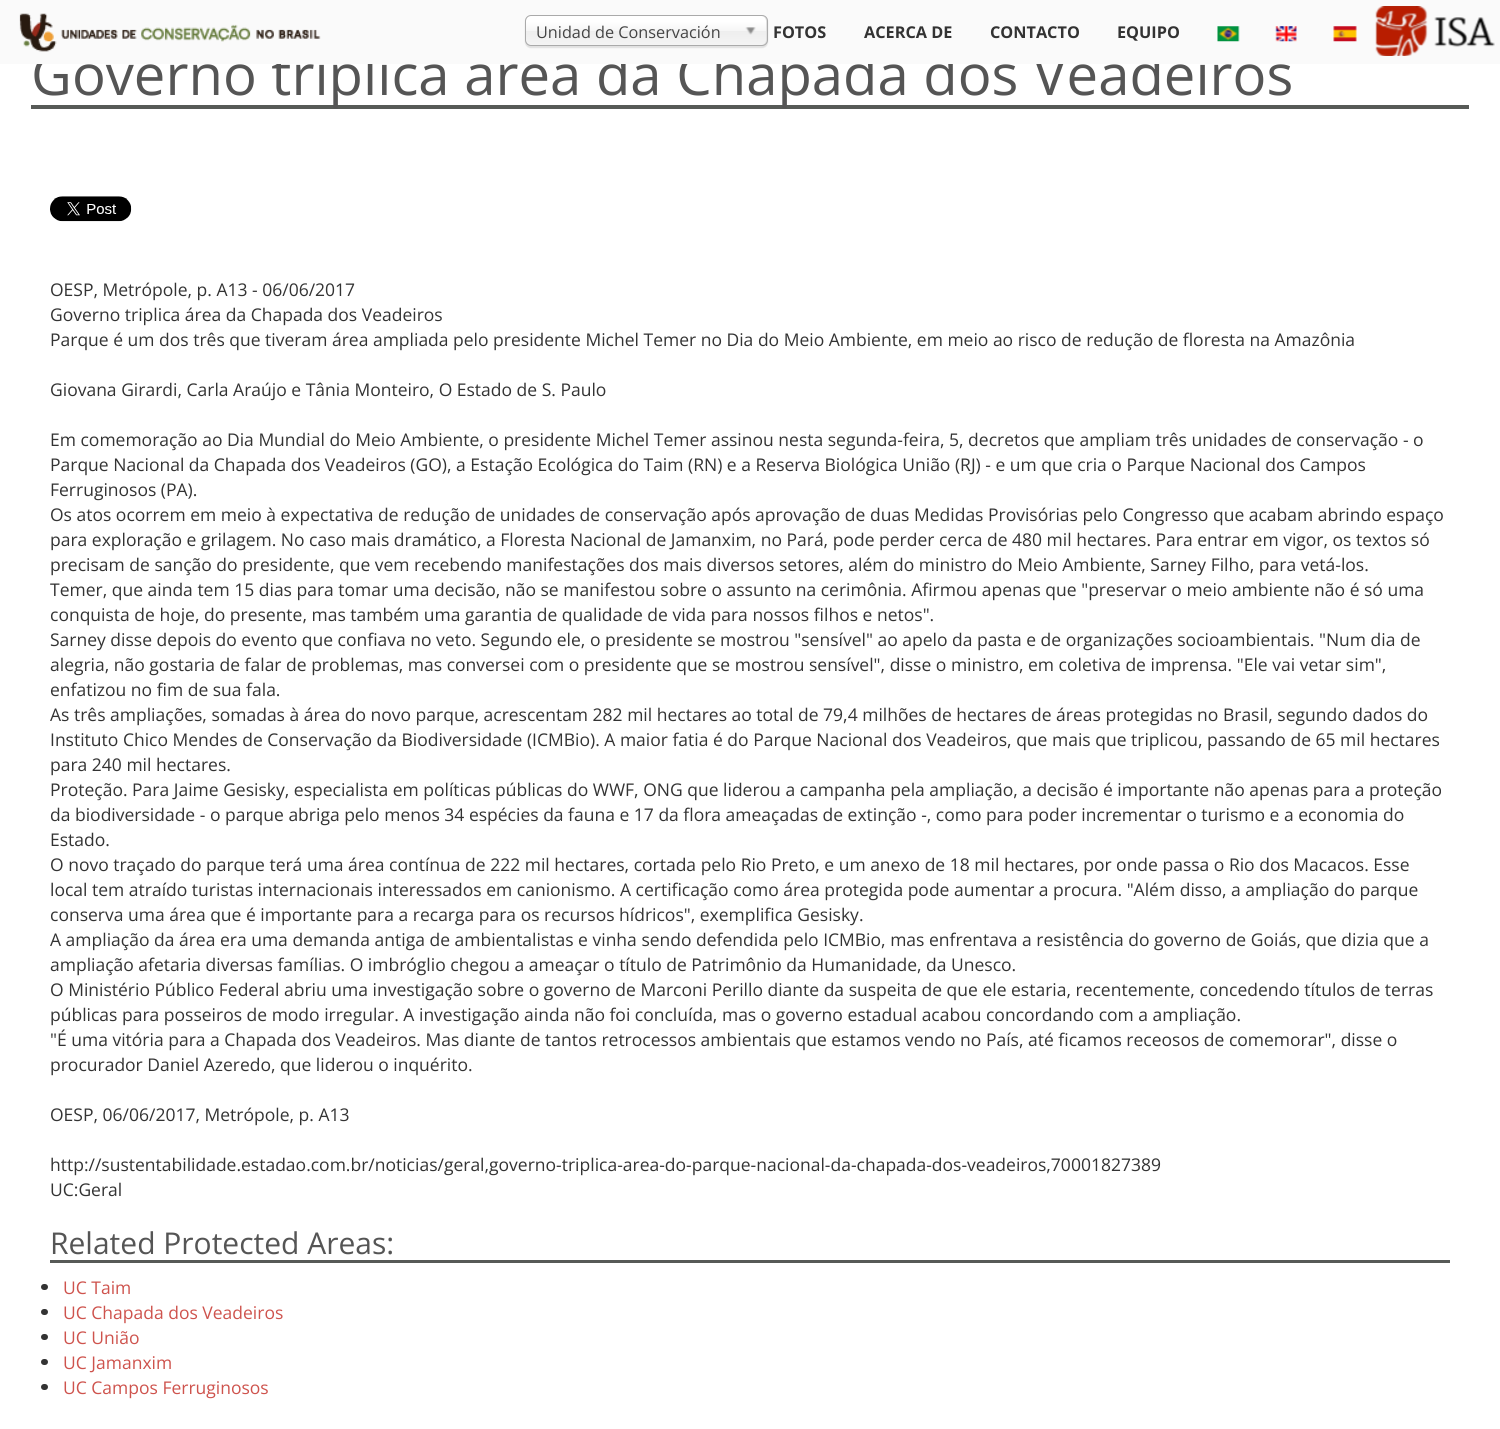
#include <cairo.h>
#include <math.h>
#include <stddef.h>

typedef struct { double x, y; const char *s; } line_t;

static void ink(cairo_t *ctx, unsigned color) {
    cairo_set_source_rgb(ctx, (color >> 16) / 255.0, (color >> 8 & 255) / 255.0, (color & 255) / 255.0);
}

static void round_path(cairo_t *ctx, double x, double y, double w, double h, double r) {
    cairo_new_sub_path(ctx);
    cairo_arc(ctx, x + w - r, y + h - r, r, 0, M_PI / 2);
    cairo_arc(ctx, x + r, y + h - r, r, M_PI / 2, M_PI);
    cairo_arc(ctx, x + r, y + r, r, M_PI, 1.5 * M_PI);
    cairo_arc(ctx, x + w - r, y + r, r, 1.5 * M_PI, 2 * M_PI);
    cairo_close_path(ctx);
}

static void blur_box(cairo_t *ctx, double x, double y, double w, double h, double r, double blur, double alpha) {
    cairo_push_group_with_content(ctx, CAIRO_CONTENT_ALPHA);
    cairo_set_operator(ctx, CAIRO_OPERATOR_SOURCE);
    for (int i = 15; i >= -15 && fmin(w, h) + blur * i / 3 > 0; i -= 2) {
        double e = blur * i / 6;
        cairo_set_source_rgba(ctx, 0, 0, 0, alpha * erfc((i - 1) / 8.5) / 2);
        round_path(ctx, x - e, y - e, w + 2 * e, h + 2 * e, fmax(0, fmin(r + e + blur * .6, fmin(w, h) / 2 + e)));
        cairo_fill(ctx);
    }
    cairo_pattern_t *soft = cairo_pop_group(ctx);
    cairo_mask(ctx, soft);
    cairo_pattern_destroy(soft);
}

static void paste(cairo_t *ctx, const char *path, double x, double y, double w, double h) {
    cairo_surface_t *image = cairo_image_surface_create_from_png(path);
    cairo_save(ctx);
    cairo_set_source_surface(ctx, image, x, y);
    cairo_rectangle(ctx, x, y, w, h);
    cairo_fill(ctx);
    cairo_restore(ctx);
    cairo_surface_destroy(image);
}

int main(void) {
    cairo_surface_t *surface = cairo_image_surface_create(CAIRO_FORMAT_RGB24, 1500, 1429);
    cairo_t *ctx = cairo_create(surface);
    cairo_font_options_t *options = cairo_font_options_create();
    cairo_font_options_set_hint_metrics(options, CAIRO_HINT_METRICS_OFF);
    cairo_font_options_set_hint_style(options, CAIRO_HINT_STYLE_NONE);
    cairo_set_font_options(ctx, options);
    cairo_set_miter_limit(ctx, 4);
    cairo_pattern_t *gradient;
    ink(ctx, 0xFFFFFF);
    cairo_paint(ctx);
    ink(ctx, 0x575A57);
    cairo_rectangle(ctx, 31, 105, 1438, 4);
    cairo_fill(ctx);
    cairo_select_font_face(ctx, "Open Sans", CAIRO_FONT_SLANT_NORMAL, CAIRO_FONT_WEIGHT_NORMAL);
    cairo_set_font_size(ctx, 56.25);
    ink(ctx, 0x555555);
    cairo_move_to(ctx, 31, 95);
    cairo_show_text(ctx, "Governo triplica área da Chapada dos Veadeiros");
    ink(ctx, 0xFAFAFA);
    cairo_rectangle(ctx, 0, 0, 1500, 64);
    cairo_fill(ctx);
    paste(ctx, "media/1.png", 19, 13, 302, 39);
    ink(ctx, 0x000000);
    blur_box(ctx, 525, 16, 243, 32, 6, 0.5, 0.1);
    gradient = cairo_pattern_create_linear(646, 16, 646, 45);
    cairo_pattern_add_color_stop_rgba(gradient, 0.2, 1, 1, 1, 1);
    cairo_pattern_add_color_stop_rgba(gradient, 0.5, 0.965, 0.965, 0.965, 1);
    cairo_pattern_add_color_stop_rgba(gradient, 0.52, 0.933, 0.933, 0.933, 1);
    cairo_pattern_add_color_stop_rgba(gradient, 1, 0.957, 0.957, 0.957, 1);
    cairo_set_source(ctx, gradient);
    cairo_pattern_destroy(gradient);
    round_path(ctx, 526, 16, 240, 29, 5);
    cairo_fill(ctx);
    round_path(ctx, 525.5, 15.5, 242, 30, 5.5);
    ink(ctx, 0xAAAAAA);
    cairo_set_line_width(ctx, 1);
    cairo_stroke(ctx);
    cairo_set_font_size(ctx, 16.25);
    ink(ctx, 0x444444);
    cairo_move_to(ctx, 536, 38);
    cairo_show_text(ctx, "Unidad de Conservación");
    paste(ctx, "media/2.png", 745, 27, 11, 8);
    cairo_select_font_face(ctx, "Open Sans", CAIRO_FONT_SLANT_NORMAL, CAIRO_FONT_WEIGHT_BOLD);
    ink(ctx, 0x333333);
    {
        static const line_t items[] = {
            {773, 38, "FOTOS"},
            {864, 38, "ACERCA DE"},
            {990, 38, "CONTACTO"},
            {1117, 38, "EQUIPO"},
        };
        for (size_t i = 0; i < sizeof items / sizeof *items; i++) {
            cairo_move_to(ctx, items[i].x, items[i].y);
            cairo_show_text(ctx, items[i].s);
        }
    }
    paste(ctx, "media/3.png", 1217, 26, 23, 16);
    paste(ctx, "media/4.png", 1275, 26, 22, 16);
    paste(ctx, "media/5.png", 1333, 26, 24, 16);
    paste(ctx, "media/6.png", 1375, 6, 120, 50);
    paste(ctx, "media/7.png", 50, 196, 82, 26);
    cairo_select_font_face(ctx, "Open Sans", CAIRO_FONT_SLANT_NORMAL, CAIRO_FONT_WEIGHT_NORMAL);
    cairo_set_font_size(ctx, 17.5);
    {
        static const line_t items[] = {
            {50, 296, "OESP, Metrópole, p. A13 - 06/06/2017"},
            {50, 321, "Governo triplica área da Chapada dos Veadeiros"},
            {50, 346, "Parque é um dos três que tiveram área ampliada pelo presidente Michel Temer no Dia do Meio Ambiente, em meio ao risco de redução de floresta na Amazônia"},
            {50, 396, "Giovana Girardi, Carla Araújo e Tânia Monteiro, O Estado de S. Paulo"},
            {50, 446, "Em comemoração ao Dia Mundial do Meio Ambiente, o presidente Michel Temer assinou nesta segunda-feira, 5, decretos que ampliam três unidades de conservação - o"},
            {50, 471, "Parque Nacional da Chapada dos Veadeiros (GO), a Estação Ecológica do Taim (RN) e a Reserva Biológica União (RJ) - e um que cria o Parque Nacional dos Campos"},
            {50, 496, "Ferruginosos (PA)."},
            {50, 521, "Os atos ocorrem em meio à expectativa de redução de unidades de conservação após aprovação de duas Medidas Provisórias pelo Congresso que acabam abrindo espaço"},
            {50, 546, "para exploração e grilagem. No caso mais dramático, a Floresta Nacional de Jamanxim, no Pará, pode perder cerca de 480 mil hectares. Para entrar em vigor, os textos só"},
            {50, 571, "precisam de sanção do presidente, que vem recebendo manifestações dos mais diversos setores, além do ministro do Meio Ambiente, Sarney Filho, para vetá-los."},
            {50, 596, "Temer, que ainda tem 15 dias para tomar uma decisão, não se manifestou sobre o assunto na cerimônia. Afirmou apenas que \"preservar o meio ambiente não é só uma"},
            {50, 621, "conquista de hoje, do presente, mas também uma garantia de qualidade de vida para nossos filhos e netos\"."},
            {50, 646, "Sarney disse depois do evento que confiava no veto. Segundo ele, o presidente se mostrou \"sensível\" ao apelo da pasta e de organizações socioambientais. \"Num dia de"},
            {50, 671, "alegria, não gostaria de falar de problemas, mas conversei com o presidente que se mostrou sensível\", disse o ministro, em coletiva de imprensa. \"Ele vai vetar sim\","},
            {50, 696, "enfatizou no fim de sua fala."},
            {50, 721, "As três ampliações, somadas à área do novo parque, acrescentam 282 mil hectares ao total de 79,4 milhões de hectares de áreas protegidas no Brasil, segundo dados do"},
            {50, 746, "Instituto Chico Mendes de Conservação da Biodiversidade (ICMBio). A maior fatia é do Parque Nacional dos Veadeiros, que mais que triplicou, passando de 65 mil hectares"},
            {50, 771, "para 240 mil hectares."},
            {50, 796, "Proteção. Para Jaime Gesisky, especialista em políticas públicas do WWF, ONG que liderou a campanha pela ampliação, a decisão é importante não apenas para a proteção"},
            {50, 821, "da biodiversidade - o parque abriga pelo menos 34 espécies da fauna e 17 da flora ameaçadas de extinção -, como para poder incrementar o turismo e a economia do"},
            {50, 846, "Estado."},
            {50, 871, "O novo traçado do parque terá uma área contínua de 222 mil hectares, cortada pelo Rio Preto, e um anexo de 18 mil hectares, por onde passa o Rio dos Macacos. Esse"},
            {50, 896, "local tem atraído turistas internacionais interessados em canionismo. A certificação como área protegida pode aumentar a procura. \"Além disso, a ampliação do parque"},
            {50, 921, "conserva uma área que é importante para a recarga para os recursos hídricos\", exemplifica Gesisky."},
            {50, 946, "A ampliação da área era uma demanda antiga de ambientalistas e vinha sendo defendida pelo ICMBio, mas enfrentava a resistência do governo de Goiás, que dizia que a"},
            {50, 971, "ampliação afetaria diversas famílias. O imbróglio chegou a ameaçar o título de Patrimônio da Humanidade, da Unesco."},
            {50, 996, "O Ministério Público Federal abriu uma investigação sobre o governo de Marconi Perillo diante da suspeita de que ele estaria, recentemente, concedendo títulos de terras"},
            {50, 1021, "públicas para posseiros de modo irregular. A investigação ainda não foi concluída, mas o governo estadual acabou concordando com a ampliação."},
            {50, 1046, "\"É uma vitória para a Chapada dos Veadeiros. Mas diante de tantos retrocessos ambientais que estamos vendo no País, até ficamos receosos de comemorar\", disse o"},
            {50, 1071, "procurador Daniel Azeredo, que liderou o inquérito."},
            {50, 1121, "OESP, 06/06/2017, Metrópole, p. A13"},
            {50, 1171, "http://sustentabilidade.estadao.com.br/noticias/geral,governo-triplica-area-do-parque-nacional-da-chapada-dos-veadeiros,70001827389"},
            {50, 1196, "UC:Geral"},
        };
        for (size_t i = 0; i < sizeof items / sizeof *items; i++) {
            cairo_move_to(ctx, items[i].x, items[i].y);
            cairo_show_text(ctx, items[i].s);
        }
    }
    ink(ctx, 0x575A57);
    cairo_rectangle(ctx, 50, 1260, 1400, 3);
    cairo_fill(ctx);
    cairo_set_font_size(ctx, 30);
    ink(ctx, 0x555555);
    cairo_move_to(ctx, 50, 1254);
    cairo_show_text(ctx, "Related Protected Areas:");
    ink(ctx, 0x333333);
    round_path(ctx, 41, 1284, 7, 6, 3);
    cairo_fill(ctx);
    cairo_set_font_size(ctx, 17.5);
    ink(ctx, 0xCE534D);
    cairo_move_to(ctx, 63, 1294);
    cairo_show_text(ctx, "UC Taim");
    ink(ctx, 0x333333);
    round_path(ctx, 41, 1309, 7, 6, 3);
    cairo_fill(ctx);
    ink(ctx, 0xCE534D);
    cairo_move_to(ctx, 63, 1319);
    cairo_show_text(ctx, "UC Chapada dos Veadeiros");
    ink(ctx, 0x333333);
    round_path(ctx, 41, 1334, 7, 6, 3);
    cairo_fill(ctx);
    ink(ctx, 0xCE534D);
    cairo_move_to(ctx, 63, 1344);
    cairo_show_text(ctx, "UC União");
    ink(ctx, 0x333333);
    round_path(ctx, 41, 1359, 7, 6, 3);
    cairo_fill(ctx);
    ink(ctx, 0xCE534D);
    cairo_move_to(ctx, 63, 1369);
    cairo_show_text(ctx, "UC Jamanxim");
    ink(ctx, 0x333333);
    round_path(ctx, 41, 1384, 7, 6, 3);
    cairo_fill(ctx);
    ink(ctx, 0xCE534D);
    cairo_move_to(ctx, 63, 1394);
    cairo_show_text(ctx, "UC Campos Ferruginosos");
    cairo_surface_write_to_png(surface, "image.png");
    cairo_font_options_destroy(options);
    cairo_destroy(ctx);
    cairo_surface_destroy(surface);
    return 0;
}
